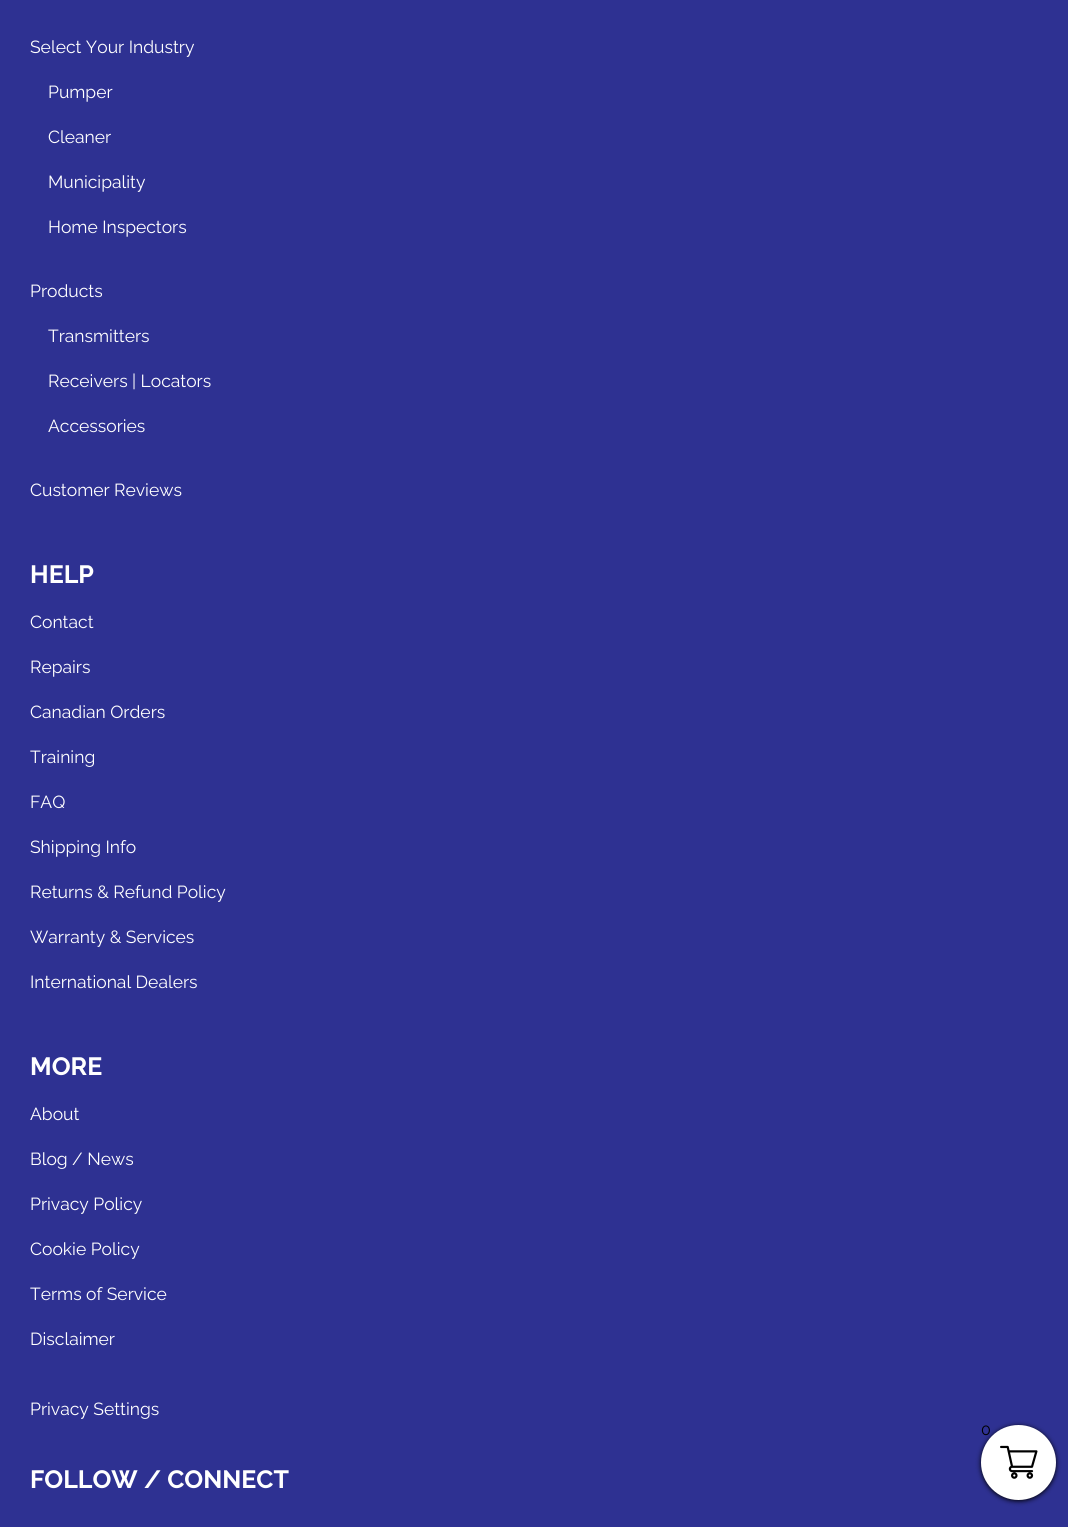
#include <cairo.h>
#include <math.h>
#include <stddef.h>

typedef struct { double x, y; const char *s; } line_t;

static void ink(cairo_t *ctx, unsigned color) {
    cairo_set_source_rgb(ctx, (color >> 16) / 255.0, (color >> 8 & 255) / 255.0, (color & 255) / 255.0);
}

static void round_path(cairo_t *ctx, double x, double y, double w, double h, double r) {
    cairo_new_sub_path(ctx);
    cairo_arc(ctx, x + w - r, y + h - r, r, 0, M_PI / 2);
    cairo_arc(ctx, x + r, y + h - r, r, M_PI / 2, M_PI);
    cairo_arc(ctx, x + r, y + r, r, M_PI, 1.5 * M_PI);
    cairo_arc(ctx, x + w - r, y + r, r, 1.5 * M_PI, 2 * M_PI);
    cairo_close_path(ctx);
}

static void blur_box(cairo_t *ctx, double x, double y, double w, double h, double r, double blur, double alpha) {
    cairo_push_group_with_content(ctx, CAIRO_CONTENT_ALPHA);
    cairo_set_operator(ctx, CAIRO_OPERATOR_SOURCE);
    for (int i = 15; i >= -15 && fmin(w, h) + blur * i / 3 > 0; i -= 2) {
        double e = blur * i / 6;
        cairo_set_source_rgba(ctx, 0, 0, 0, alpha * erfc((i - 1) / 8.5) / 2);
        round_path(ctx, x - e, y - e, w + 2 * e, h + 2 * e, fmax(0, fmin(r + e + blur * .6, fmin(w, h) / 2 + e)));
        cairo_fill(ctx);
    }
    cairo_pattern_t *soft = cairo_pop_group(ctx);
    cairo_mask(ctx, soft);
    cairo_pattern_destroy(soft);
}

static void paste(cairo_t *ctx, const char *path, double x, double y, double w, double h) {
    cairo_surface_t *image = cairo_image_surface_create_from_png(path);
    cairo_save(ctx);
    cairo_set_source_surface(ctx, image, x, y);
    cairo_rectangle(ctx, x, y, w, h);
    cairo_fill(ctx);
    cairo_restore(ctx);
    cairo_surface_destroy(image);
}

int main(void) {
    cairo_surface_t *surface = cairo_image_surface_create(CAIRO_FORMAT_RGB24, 1068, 1527);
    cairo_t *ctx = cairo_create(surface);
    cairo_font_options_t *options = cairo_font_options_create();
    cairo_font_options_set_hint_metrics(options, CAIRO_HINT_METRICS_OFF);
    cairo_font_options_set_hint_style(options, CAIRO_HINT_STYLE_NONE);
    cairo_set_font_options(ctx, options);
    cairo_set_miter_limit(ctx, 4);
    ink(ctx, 0x2E3192);
    cairo_paint(ctx);
    cairo_select_font_face(ctx, "Raleway", CAIRO_FONT_SLANT_NORMAL, CAIRO_FONT_WEIGHT_NORMAL);
    cairo_set_font_size(ctx, 17.5);
    ink(ctx, 0xFFFFFF);
    {
        static const line_t items[] = {
            {30, 53, "Select Your Industry"},
            {48, 98, "Pumper"},
            {48, 143, "Cleaner"},
            {48, 188, "Municipality"},
            {48, 233, "Home Inspectors"},
            {30, 297, "Products"},
            {48, 342, "Transmitters"},
            {48, 387, "Receivers | Locators"},
            {48, 432, "Accessories"},
            {30, 496, "Customer Reviews"},
        };
        for (size_t i = 0; i < sizeof items / sizeof *items; i++) {
            cairo_move_to(ctx, items[i].x, items[i].y);
            cairo_show_text(ctx, items[i].s);
        }
    }
    cairo_select_font_face(ctx, "Raleway", CAIRO_FONT_SLANT_NORMAL, CAIRO_FONT_WEIGHT_BOLD);
    cairo_set_font_size(ctx, 25);
    cairo_move_to(ctx, 30, 583);
    cairo_show_text(ctx, "HELP");
    cairo_select_font_face(ctx, "Raleway", CAIRO_FONT_SLANT_NORMAL, CAIRO_FONT_WEIGHT_NORMAL);
    cairo_set_font_size(ctx, 17.5);
    {
        static const line_t items[] = {
            {30, 628, "Contact"},
            {30, 673, "Repairs"},
            {30, 718, "Canadian Orders"},
            {30, 763, "Training"},
            {30, 808, "FAQ"},
            {30, 853, "Shipping Info"},
            {30, 898, "Returns & Refund Policy"},
            {30, 943, "Warranty & Services"},
            {30, 988, "International Dealers"},
        };
        for (size_t i = 0; i < sizeof items / sizeof *items; i++) {
            cairo_move_to(ctx, items[i].x, items[i].y);
            cairo_show_text(ctx, items[i].s);
        }
    }
    cairo_select_font_face(ctx, "Raleway", CAIRO_FONT_SLANT_NORMAL, CAIRO_FONT_WEIGHT_BOLD);
    cairo_set_font_size(ctx, 25);
    cairo_move_to(ctx, 30, 1075);
    cairo_show_text(ctx, "MORE");
    cairo_select_font_face(ctx, "Raleway", CAIRO_FONT_SLANT_NORMAL, CAIRO_FONT_WEIGHT_NORMAL);
    cairo_set_font_size(ctx, 17.5);
    {
        static const line_t items[] = {
            {30, 1120, "About"},
            {30, 1165, "Blog / News"},
            {30, 1210, "Privacy Policy"},
            {30, 1255, "Cookie Policy"},
            {30, 1300, "Terms of Service"},
            {30, 1345, "Disclaimer"},
            {30, 1415, "Privacy Settings"},
        };
        for (size_t i = 0; i < sizeof items / sizeof *items; i++) {
            cairo_move_to(ctx, items[i].x, items[i].y);
            cairo_show_text(ctx, items[i].s);
        }
    }
    cairo_select_font_face(ctx, "Raleway", CAIRO_FONT_SLANT_NORMAL, CAIRO_FONT_WEIGHT_BOLD);
    cairo_set_font_size(ctx, 25);
    cairo_move_to(ctx, 30, 1488);
    cairo_show_text(ctx, "FOLLOW / CONNECT");
    ink(ctx, 0x000000);
    blur_box(ctx, 981, 1426, 75, 75, 37.5, 2.5, 1);
    ink(ctx, 0xFFFFFF);
    cairo_arc(ctx, 1018.5, 1462.5, 37.5, 0, 2 * M_PI);
    cairo_fill(ctx);
    cairo_select_font_face(ctx, "Raleway", CAIRO_FONT_SLANT_NORMAL, CAIRO_FONT_WEIGHT_NORMAL);
    cairo_set_font_size(ctx, 16);
    ink(ctx, 0x000000);
    cairo_move_to(ctx, 981, 1435);
    cairo_show_text(ctx, "0");
    paste(ctx, "media/1.png", 1000, 1445, 38, 34);
    cairo_surface_write_to_png(surface, "image.png");
    cairo_font_options_destroy(options);
    cairo_destroy(ctx);
    cairo_surface_destroy(surface);
    return 0;
}
